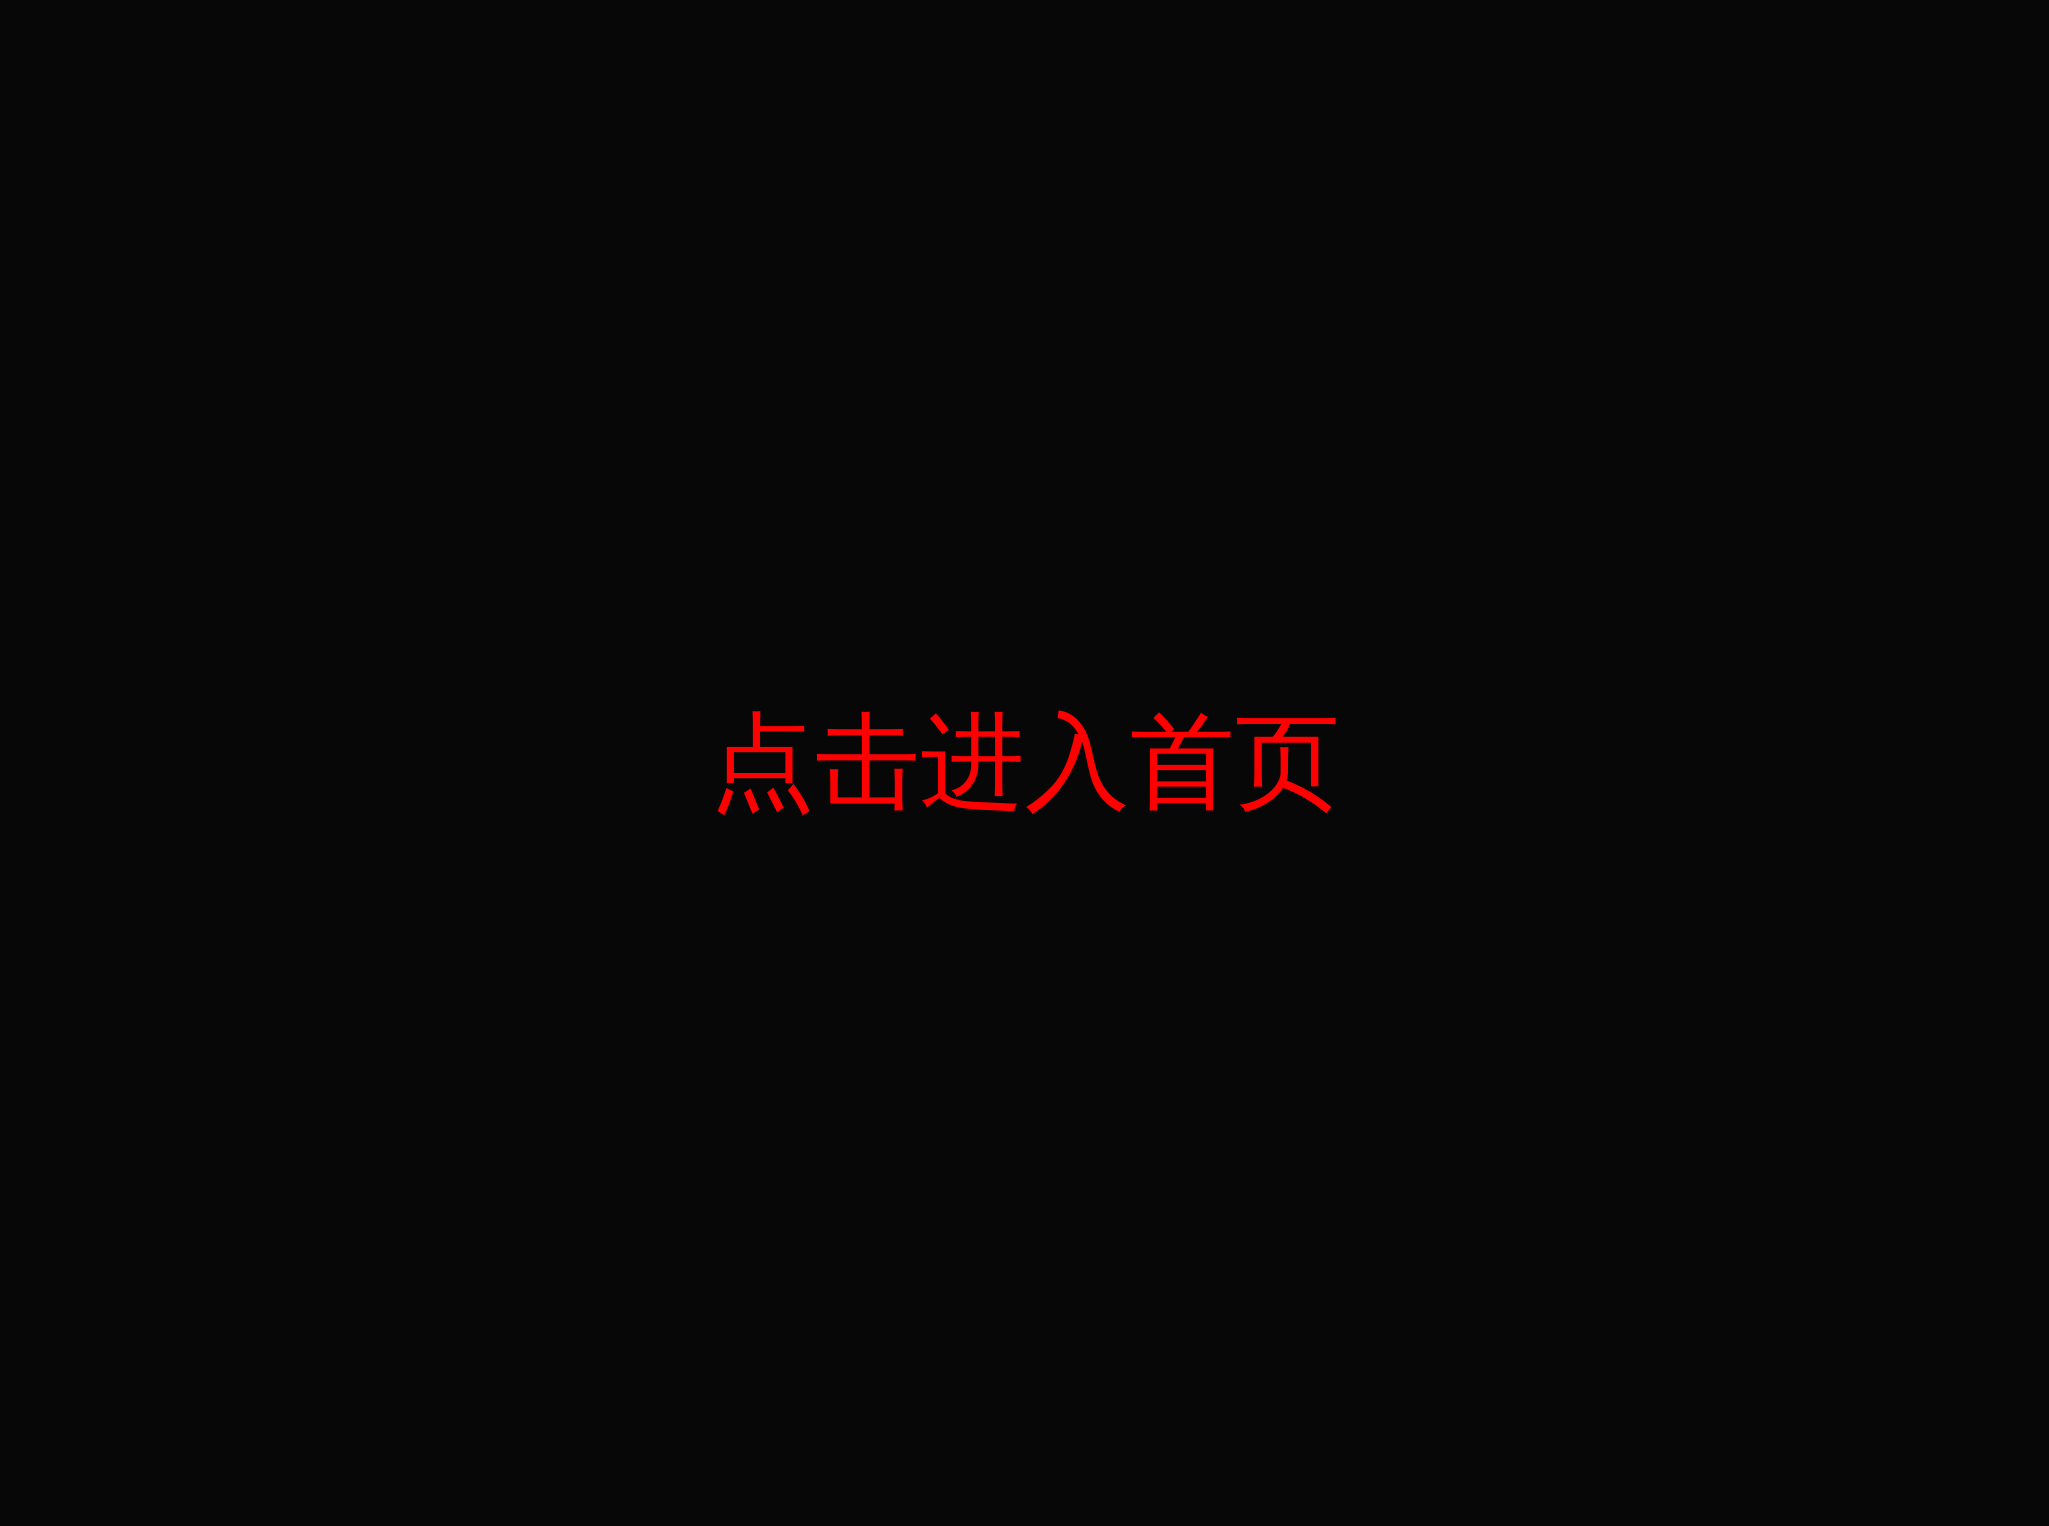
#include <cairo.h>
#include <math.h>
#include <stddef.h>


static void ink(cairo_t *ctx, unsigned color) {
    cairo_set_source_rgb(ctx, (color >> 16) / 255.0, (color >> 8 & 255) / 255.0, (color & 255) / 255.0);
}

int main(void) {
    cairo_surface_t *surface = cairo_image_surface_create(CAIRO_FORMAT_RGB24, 2049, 1526);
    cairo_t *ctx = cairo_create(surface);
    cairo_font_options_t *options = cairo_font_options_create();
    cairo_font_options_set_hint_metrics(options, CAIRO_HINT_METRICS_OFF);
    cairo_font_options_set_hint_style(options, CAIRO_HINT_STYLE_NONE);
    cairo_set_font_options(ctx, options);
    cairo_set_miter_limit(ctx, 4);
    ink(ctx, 0x070707);
    cairo_paint(ctx);
    cairo_select_font_face(ctx, "WenQuanYi Zen Hei Medium", CAIRO_FONT_SLANT_NORMAL, CAIRO_FONT_WEIGHT_NORMAL);
    cairo_set_font_size(ctx, 105);
    ink(ctx, 0xFF0000);
    cairo_move_to(ctx, 710, 798);
    cairo_show_text(ctx, "点击进入首页");
    cairo_surface_write_to_png(surface, "image.png");
    cairo_font_options_destroy(options);
    cairo_destroy(ctx);
    cairo_surface_destroy(surface);
    return 0;
}
